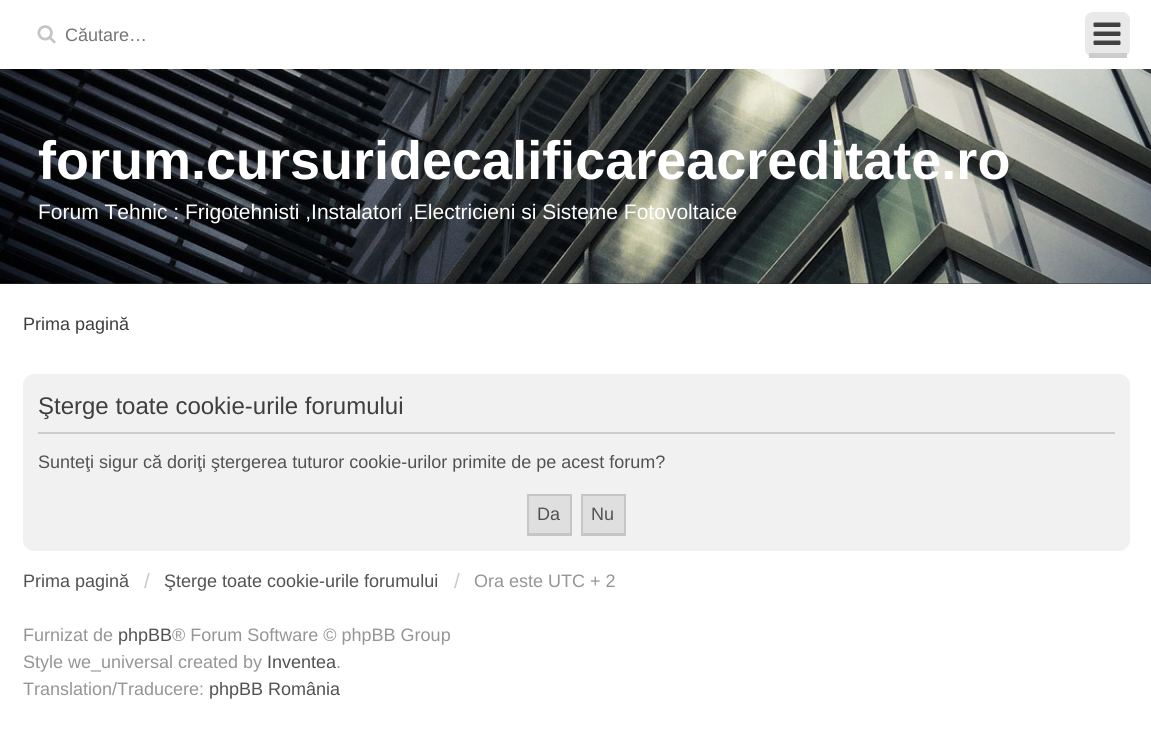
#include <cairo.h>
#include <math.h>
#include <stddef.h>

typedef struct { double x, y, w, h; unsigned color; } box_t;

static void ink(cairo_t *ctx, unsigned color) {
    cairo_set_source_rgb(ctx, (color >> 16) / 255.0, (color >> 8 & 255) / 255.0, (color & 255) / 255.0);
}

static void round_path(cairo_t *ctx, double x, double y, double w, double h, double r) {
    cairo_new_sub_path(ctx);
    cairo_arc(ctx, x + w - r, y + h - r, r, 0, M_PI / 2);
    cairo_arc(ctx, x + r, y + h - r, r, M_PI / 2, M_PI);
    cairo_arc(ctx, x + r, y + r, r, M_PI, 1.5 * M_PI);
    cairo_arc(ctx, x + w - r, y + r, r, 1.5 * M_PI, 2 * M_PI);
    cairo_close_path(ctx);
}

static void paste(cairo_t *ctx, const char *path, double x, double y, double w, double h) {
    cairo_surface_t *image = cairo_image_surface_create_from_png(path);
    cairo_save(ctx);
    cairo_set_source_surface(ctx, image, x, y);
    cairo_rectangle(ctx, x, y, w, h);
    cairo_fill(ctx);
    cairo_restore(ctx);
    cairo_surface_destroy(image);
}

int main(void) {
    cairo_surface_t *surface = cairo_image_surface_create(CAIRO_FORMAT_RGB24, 1151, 740);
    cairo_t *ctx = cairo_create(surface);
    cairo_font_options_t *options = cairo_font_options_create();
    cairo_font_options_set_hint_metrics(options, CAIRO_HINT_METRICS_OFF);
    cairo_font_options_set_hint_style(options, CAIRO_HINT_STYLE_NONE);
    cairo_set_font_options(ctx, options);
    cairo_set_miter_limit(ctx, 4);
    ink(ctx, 0xFFFFFF);
    cairo_paint(ctx);
    paste(ctx, "media/1.png", 37, 25, 19, 19);
    cairo_select_font_face(ctx, "Liberation Sans", CAIRO_FONT_SLANT_NORMAL, CAIRO_FONT_WEIGHT_NORMAL);
    cairo_set_font_size(ctx, 18);
    ink(ctx, 0x757575);
    cairo_move_to(ctx, 65, 41);
    cairo_show_text(ctx, "Căutare…");
    ink(ctx, 0xE9E9E9);
    round_path(ctx, 1085, 12, 45, 45, 8);
    cairo_fill(ctx);
    ink(ctx, 0xCCCCCC);
    cairo_rectangle(ctx, 1089, 53, 38, 5);
    cairo_fill(ctx);
    paste(ctx, "media/2.png", 1093, 22, 28, 23);
    ink(ctx, 0x292C2F);
    cairo_rectangle(ctx, 0, 283, 1151, 1);
    cairo_fill(ctx);
    paste(ctx, "media/3.png", 0, 69, 1151, 215);
    cairo_select_font_face(ctx, "Liberation Sans", CAIRO_FONT_SLANT_NORMAL, CAIRO_FONT_WEIGHT_BOLD);
    cairo_set_font_size(ctx, 54);
    ink(ctx, 0xFFFFFF);
    cairo_move_to(ctx, 38, 179);
    cairo_show_text(ctx, "forum.cursuridecalificareacreditate.ro");
    cairo_select_font_face(ctx, "Liberation Sans", CAIRO_FONT_SLANT_NORMAL, CAIRO_FONT_WEIGHT_NORMAL);
    cairo_set_font_size(ctx, 21);
    cairo_move_to(ctx, 38, 219);
    cairo_show_text(ctx, "Forum Tehnic : Frigotehnisti ,Instalatori ,Electricieni si Sisteme Fotovoltaice");
    cairo_set_font_size(ctx, 18);
    ink(ctx, 0x3F3F3F);
    cairo_move_to(ctx, 23, 330);
    cairo_show_text(ctx, "Prima pagină");
    ink(ctx, 0xF1F1F1);
    round_path(ctx, 23, 374, 1107, 177, 11);
    cairo_fill(ctx);
    ink(ctx, 0xCCCCCC);
    cairo_rectangle(ctx, 38, 432, 1077, 2);
    cairo_fill(ctx);
    cairo_set_font_size(ctx, 24);
    ink(ctx, 0x3F3F3F);
    cairo_move_to(ctx, 38, 414);
    cairo_show_text(ctx, "Şterge toate cookie-urile forumului");
    cairo_set_font_size(ctx, 18);
    ink(ctx, 0x525252);
    cairo_move_to(ctx, 38, 468);
    cairo_show_text(ctx, "Sunteţi sigur că doriţi ştergerea tuturor cookie-urilor primite de pe acest forum?");
    {
        static const box_t items[] = {
            {529, 496, 41, 37, 0xDFDFDF},
            {527, 494, 45, 2, 0xC5C5C5},
            {570, 494, 2, 42, 0xC5C5C5},
            {527, 533, 45, 3, 0xC5C5C5},
            {527, 494, 2, 42, 0xC5C5C5},
        };
        for (size_t i = 0; i < sizeof items / sizeof *items; i++) {
            ink(ctx, items[i].color);
            cairo_rectangle(ctx, items[i].x, items[i].y, items[i].w, items[i].h);
            cairo_fill(ctx);
        }
    }
    ink(ctx, 0x525252);
    cairo_move_to(ctx, 537, 520);
    cairo_show_text(ctx, "Da");
    {
        static const box_t items[] = {
            {583, 496, 41, 37, 0xDFDFDF},
            {581, 494, 45, 2, 0xC5C5C5},
            {624, 494, 2, 42, 0xC5C5C5},
            {581, 533, 45, 3, 0xC5C5C5},
            {581, 494, 2, 42, 0xC5C5C5},
        };
        for (size_t i = 0; i < sizeof items / sizeof *items; i++) {
            ink(ctx, items[i].color);
            cairo_rectangle(ctx, items[i].x, items[i].y, items[i].w, items[i].h);
            cairo_fill(ctx);
        }
    }
    ink(ctx, 0x525252);
    cairo_move_to(ctx, 591, 520);
    cairo_show_text(ctx, "Nu");
    cairo_move_to(ctx, 23, 587);
    cairo_show_text(ctx, "Prima pagină");
    cairo_set_font_size(ctx, 21);
    ink(ctx, 0xCACACA);
    cairo_move_to(ctx, 144, 588);
    cairo_show_text(ctx, "/");
    cairo_set_font_size(ctx, 18);
    ink(ctx, 0x525252);
    cairo_move_to(ctx, 164, 587);
    cairo_show_text(ctx, "Şterge toate cookie-urile forumului");
    cairo_set_font_size(ctx, 21);
    ink(ctx, 0xCACACA);
    cairo_move_to(ctx, 454, 588);
    cairo_show_text(ctx, "/");
    cairo_set_font_size(ctx, 18);
    ink(ctx, 0x959595);
    cairo_move_to(ctx, 474, 587);
    cairo_show_text(ctx, "Ora este UTC + 2");
    cairo_move_to(ctx, 23, 641);
    cairo_show_text(ctx, "Furnizat de");
    ink(ctx, 0x525252);
    cairo_move_to(ctx, 118, 641);
    cairo_show_text(ctx, "phpBB");
    ink(ctx, 0x959595);
    cairo_move_to(ctx, 172, 641);
    cairo_show_text(ctx, "® Forum Software © phpBB Group");
    cairo_move_to(ctx, 23, 668);
    cairo_show_text(ctx, "Style we_universal created by");
    ink(ctx, 0x525252);
    cairo_move_to(ctx, 267, 668);
    cairo_show_text(ctx, "Inventea");
    ink(ctx, 0x959595);
    cairo_move_to(ctx, 336, 668);
    cairo_show_text(ctx, ".");
    cairo_move_to(ctx, 23, 695);
    cairo_show_text(ctx, "Translation/Traducere:");
    ink(ctx, 0x525252);
    cairo_move_to(ctx, 209, 695);
    cairo_show_text(ctx, "phpBB România");
    cairo_surface_write_to_png(surface, "image.png");
    cairo_font_options_destroy(options);
    cairo_destroy(ctx);
    cairo_surface_destroy(surface);
    return 0;
}
